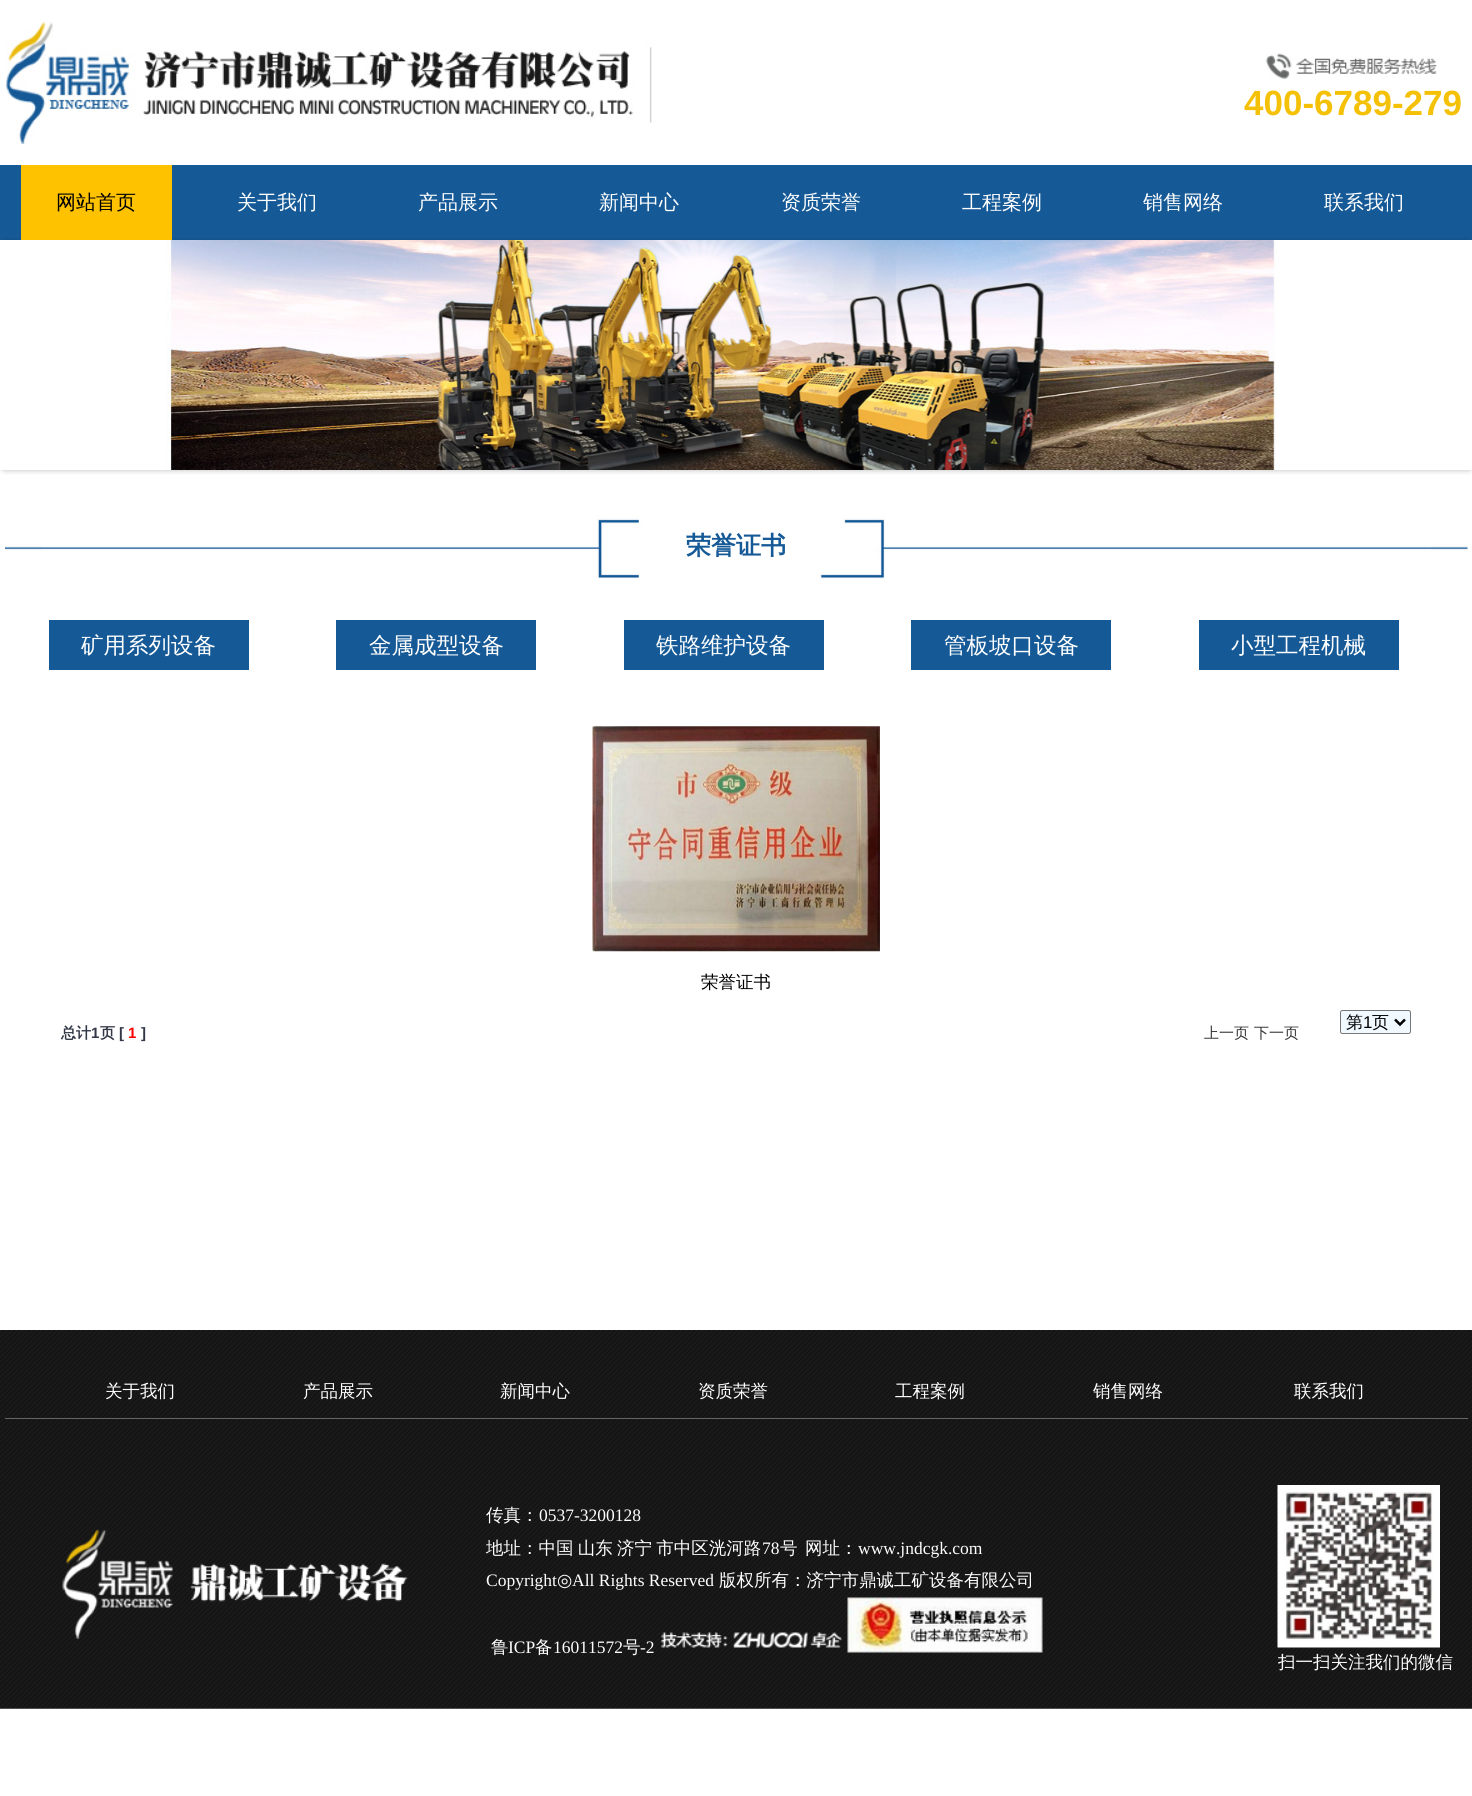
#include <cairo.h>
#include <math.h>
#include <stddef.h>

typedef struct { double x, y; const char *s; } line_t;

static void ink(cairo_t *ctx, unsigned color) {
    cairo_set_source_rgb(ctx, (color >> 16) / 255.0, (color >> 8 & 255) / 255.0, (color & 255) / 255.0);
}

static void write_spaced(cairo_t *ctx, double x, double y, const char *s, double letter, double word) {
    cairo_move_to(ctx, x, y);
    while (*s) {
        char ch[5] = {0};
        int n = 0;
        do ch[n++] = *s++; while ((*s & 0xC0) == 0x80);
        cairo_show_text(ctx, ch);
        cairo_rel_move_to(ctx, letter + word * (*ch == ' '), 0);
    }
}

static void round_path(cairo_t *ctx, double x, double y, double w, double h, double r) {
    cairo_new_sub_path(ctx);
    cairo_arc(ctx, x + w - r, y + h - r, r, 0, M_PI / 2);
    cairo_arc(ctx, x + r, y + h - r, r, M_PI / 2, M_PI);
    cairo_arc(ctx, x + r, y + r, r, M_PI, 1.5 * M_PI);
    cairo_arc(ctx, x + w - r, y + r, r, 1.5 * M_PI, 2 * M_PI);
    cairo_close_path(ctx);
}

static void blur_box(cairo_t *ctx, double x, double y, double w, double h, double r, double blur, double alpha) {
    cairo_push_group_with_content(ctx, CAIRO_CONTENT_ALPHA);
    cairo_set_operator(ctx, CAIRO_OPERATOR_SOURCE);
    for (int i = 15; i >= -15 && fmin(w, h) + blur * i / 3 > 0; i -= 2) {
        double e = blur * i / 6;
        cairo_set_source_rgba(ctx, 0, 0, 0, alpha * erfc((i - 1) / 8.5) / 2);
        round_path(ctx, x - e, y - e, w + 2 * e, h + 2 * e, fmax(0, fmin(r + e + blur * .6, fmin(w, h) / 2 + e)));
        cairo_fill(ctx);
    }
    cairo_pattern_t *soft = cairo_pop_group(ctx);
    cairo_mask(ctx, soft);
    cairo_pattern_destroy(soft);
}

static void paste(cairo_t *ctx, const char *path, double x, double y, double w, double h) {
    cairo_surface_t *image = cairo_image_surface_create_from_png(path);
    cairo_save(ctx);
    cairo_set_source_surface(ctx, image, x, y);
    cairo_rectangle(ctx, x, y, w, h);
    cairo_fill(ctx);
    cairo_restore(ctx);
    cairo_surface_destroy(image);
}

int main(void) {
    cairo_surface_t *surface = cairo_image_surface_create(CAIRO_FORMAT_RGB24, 1472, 1796);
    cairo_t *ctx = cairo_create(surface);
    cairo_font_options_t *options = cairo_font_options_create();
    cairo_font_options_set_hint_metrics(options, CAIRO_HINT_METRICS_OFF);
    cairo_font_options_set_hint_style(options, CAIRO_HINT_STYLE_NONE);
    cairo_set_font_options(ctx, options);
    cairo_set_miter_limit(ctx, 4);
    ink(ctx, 0xFFFFFF);
    cairo_paint(ctx);
    paste(ctx, "media/1.png", 6, 22, 646, 122);
    paste(ctx, "media/2.png", 1266, 53, 171, 26);
    cairo_select_font_face(ctx, "Liberation Sans", CAIRO_FONT_SLANT_NORMAL, CAIRO_FONT_WEIGHT_BOLD);
    cairo_set_font_size(ctx, 35);
    ink(ctx, 0xF4C106);
    cairo_move_to(ctx, 1244, 115);
    cairo_show_text(ctx, "400-6789-279");
    ink(ctx, 0x155996);
    cairo_rectangle(ctx, 0, 165, 1472, 75);
    cairo_fill(ctx);
    ink(ctx, 0x000000);
    blur_box(ctx, 0, 241, 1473, 230, 5, 2.5, 0.2);
    ink(ctx, 0xFFC200);
    cairo_rectangle(ctx, 21, 165, 151, 75);
    cairo_fill(ctx);
    cairo_select_font_face(ctx, "WenQuanYi Zen Hei Medium", CAIRO_FONT_SLANT_NORMAL, CAIRO_FONT_WEIGHT_NORMAL);
    cairo_set_font_size(ctx, 20);
    ink(ctx, 0x000000);
    cairo_move_to(ctx, 56, 209);
    cairo_show_text(ctx, "网站首页");
    ink(ctx, 0xFFFFFF);
    {
        static const line_t items[] = {
            {237, 209, "关于我们"},
            {418, 209, "产品展示"},
            {599, 209, "新闻中心"},
            {781, 209, "资质荣誉"},
            {962, 209, "工程案例"},
            {1143, 209, "销售网络"},
            {1324, 209, "联系我们"},
        };
        for (size_t i = 0; i < sizeof items / sizeof *items; i++) {
            cairo_move_to(ctx, items[i].x, items[i].y);
            cairo_show_text(ctx, items[i].s);
        }
    }
    paste(ctx, "media/3.png", 0, 240, 1472, 230);
    paste(ctx, "media/4.png", 5, 515, 1463, 64);
    cairo_select_font_face(ctx, "WenQuanYi Zen Hei", CAIRO_FONT_SLANT_NORMAL, CAIRO_FONT_WEIGHT_BOLD);
    cairo_set_font_size(ctx, 25);
    ink(ctx, 0x155996);
    cairo_move_to(ctx, 686, 554);
    cairo_show_text(ctx, "荣誉证书");
    cairo_rectangle(ctx, 49, 620, 200, 50);
    cairo_fill(ctx);
    cairo_select_font_face(ctx, "WenQuanYi Zen Hei Medium", CAIRO_FONT_SLANT_NORMAL, CAIRO_FONT_WEIGHT_NORMAL);
    cairo_set_font_size(ctx, 22.5);
    ink(ctx, 0xFFFFFF);
    cairo_move_to(ctx, 81, 653);
    cairo_show_text(ctx, "矿用系列设备");
    ink(ctx, 0x155996);
    cairo_rectangle(ctx, 336, 620, 200, 50);
    cairo_fill(ctx);
    ink(ctx, 0xFFFFFF);
    cairo_move_to(ctx, 369, 653);
    cairo_show_text(ctx, "金属成型设备");
    ink(ctx, 0x155996);
    cairo_rectangle(ctx, 624, 620, 200, 50);
    cairo_fill(ctx);
    ink(ctx, 0xFFFFFF);
    cairo_move_to(ctx, 656, 653);
    cairo_show_text(ctx, "铁路维护设备");
    ink(ctx, 0x155996);
    cairo_rectangle(ctx, 911, 620, 200, 50);
    cairo_fill(ctx);
    ink(ctx, 0xFFFFFF);
    cairo_move_to(ctx, 944, 653);
    cairo_show_text(ctx, "管板坡口设备");
    ink(ctx, 0x155996);
    cairo_rectangle(ctx, 1199, 620, 200, 50);
    cairo_fill(ctx);
    ink(ctx, 0xFFFFFF);
    cairo_move_to(ctx, 1231, 653);
    cairo_show_text(ctx, "小型工程机械");
    paste(ctx, "media/5.png", 592, 726, 288, 226);
    cairo_set_font_size(ctx, 17.5);
    ink(ctx, 0x000000);
    cairo_move_to(ctx, 701, 988);
    cairo_show_text(ctx, "荣誉证书");
    ink(ctx, 0xF0F9FF);
    round_path(ctx, 1340.5, 1010.5, 70, 23, 2);
    cairo_fill_preserve(ctx);
    ink(ctx, 0x767676);
    cairo_set_line_width(ctx, 1);
    cairo_stroke(ctx);
    cairo_new_path(ctx);
    cairo_move_to(ctx, 1395, 1019.5);
    cairo_line_to(ctx, 1400, 1024.5);
    cairo_line_to(ctx, 1405, 1019.5);
    ink(ctx, 0x000000);
    cairo_set_line_width(ctx, 2.5);
    cairo_stroke(ctx);
    cairo_set_font_size(ctx, 17);
    cairo_move_to(ctx, 1346, 1028);
    cairo_show_text(ctx, "第");
    cairo_select_font_face(ctx, "Liberation Sans", CAIRO_FONT_SLANT_NORMAL, CAIRO_FONT_WEIGHT_NORMAL);
    cairo_move_to(ctx, 1363, 1028);
    cairo_show_text(ctx, "1");
    cairo_select_font_face(ctx, "WenQuanYi Zen Hei Medium", CAIRO_FONT_SLANT_NORMAL, CAIRO_FONT_WEIGHT_NORMAL);
    cairo_move_to(ctx, 1372, 1028);
    cairo_show_text(ctx, "页");
    cairo_select_font_face(ctx, "WenQuanYi Zen Hei", CAIRO_FONT_SLANT_NORMAL, CAIRO_FONT_WEIGHT_BOLD);
    cairo_set_font_size(ctx, 15);
    ink(ctx, 0x323846);
    cairo_move_to(ctx, 61, 1038);
    cairo_show_text(ctx, "总计");
    cairo_select_font_face(ctx, "Liberation Sans", CAIRO_FONT_SLANT_NORMAL, CAIRO_FONT_WEIGHT_BOLD);
    cairo_move_to(ctx, 91, 1038);
    cairo_show_text(ctx, "1");
    cairo_select_font_face(ctx, "WenQuanYi Zen Hei", CAIRO_FONT_SLANT_NORMAL, CAIRO_FONT_WEIGHT_BOLD);
    cairo_move_to(ctx, 100, 1038);
    cairo_show_text(ctx, "页");
    cairo_select_font_face(ctx, "Liberation Sans", CAIRO_FONT_SLANT_NORMAL, CAIRO_FONT_WEIGHT_BOLD);
    cairo_move_to(ctx, 119, 1038);
    cairo_show_text(ctx, "[");
    ink(ctx, 0xFF0000);
    cairo_move_to(ctx, 128, 1038);
    cairo_show_text(ctx, "1");
    ink(ctx, 0x323846);
    cairo_move_to(ctx, 141, 1038);
    cairo_show_text(ctx, "]");
    cairo_select_font_face(ctx, "WenQuanYi Zen Hei Medium", CAIRO_FONT_SLANT_NORMAL, CAIRO_FONT_WEIGHT_NORMAL);
    ink(ctx, 0x333333);
    cairo_move_to(ctx, 1204, 1038);
    cairo_show_text(ctx, "上一页");
    cairo_move_to(ctx, 1254, 1038);
    cairo_show_text(ctx, "下一页");
    paste(ctx, "media/6.png", 0, 1330, 1472, 379);
    ink(ctx, 0x666666);
    cairo_rectangle(ctx, 5, 1418, 1463, 1);
    cairo_fill(ctx);
    cairo_set_font_size(ctx, 17.5);
    ink(ctx, 0xFFFFFF);
    {
        static const line_t items[] = {
            {105, 1397, "关于我们"},
            {303, 1397, "产品展示"},
            {500, 1397, "新闻中心"},
            {698, 1397, "资质荣誉"},
            {895, 1397, "工程案例"},
            {1093, 1397, "销售网络"},
            {1294, 1397, "联系我们"},
        };
        for (size_t i = 0; i < sizeof items / sizeof *items; i++) {
            cairo_move_to(ctx, items[i].x, items[i].y);
            cairo_show_text(ctx, items[i].s);
        }
    }
    paste(ctx, "media/7.png", 62, 1529, 346, 110);
    cairo_move_to(ctx, 486, 1521);
    cairo_show_text(ctx, "传真：");
    cairo_select_font_face(ctx, "Liberation Serif", CAIRO_FONT_SLANT_NORMAL, CAIRO_FONT_WEIGHT_NORMAL);
    cairo_move_to(ctx, 539, 1521);
    cairo_show_text(ctx, "0537-3200128");
    cairo_select_font_face(ctx, "WenQuanYi Zen Hei Medium", CAIRO_FONT_SLANT_NORMAL, CAIRO_FONT_WEIGHT_NORMAL);
    write_spaced(ctx, 486, 1554, "地址：中国 山东 济宁 市中区洸河路", 0, -1);
    cairo_select_font_face(ctx, "Liberation Serif", CAIRO_FONT_SLANT_NORMAL, CAIRO_FONT_WEIGHT_NORMAL);
    cairo_move_to(ctx, 762, 1554);
    cairo_show_text(ctx, "78");
    cairo_select_font_face(ctx, "WenQuanYi Zen Hei Medium", CAIRO_FONT_SLANT_NORMAL, CAIRO_FONT_WEIGHT_NORMAL);
    cairo_move_to(ctx, 780, 1554);
    cairo_show_text(ctx, "号");
    cairo_move_to(ctx, 805, 1554);
    cairo_show_text(ctx, "网址：");
    cairo_select_font_face(ctx, "Liberation Serif", CAIRO_FONT_SLANT_NORMAL, CAIRO_FONT_WEIGHT_NORMAL);
    cairo_move_to(ctx, 858, 1554);
    cairo_show_text(ctx, "www.jndcgk.com");
    cairo_move_to(ctx, 486, 1586);
    cairo_show_text(ctx, "Copyright");
    cairo_select_font_face(ctx, "DejaVu Sans", CAIRO_FONT_SLANT_NORMAL, CAIRO_FONT_WEIGHT_NORMAL);
    cairo_move_to(ctx, 557, 1586);
    cairo_show_text(ctx, "◎");
    cairo_select_font_face(ctx, "Liberation Serif", CAIRO_FONT_SLANT_NORMAL, CAIRO_FONT_WEIGHT_NORMAL);
    cairo_move_to(ctx, 572, 1586);
    cairo_show_text(ctx, "All Rights Reserved");
    cairo_select_font_face(ctx, "WenQuanYi Zen Hei Medium", CAIRO_FONT_SLANT_NORMAL, CAIRO_FONT_WEIGHT_NORMAL);
    cairo_move_to(ctx, 719, 1586);
    cairo_show_text(ctx, "版权所有：济宁市鼎诚工矿设备有限公司");
    cairo_move_to(ctx, 491, 1653);
    cairo_show_text(ctx, "鲁");
    cairo_select_font_face(ctx, "Liberation Serif", CAIRO_FONT_SLANT_NORMAL, CAIRO_FONT_WEIGHT_NORMAL);
    cairo_move_to(ctx, 508, 1653);
    cairo_show_text(ctx, "ICP");
    cairo_select_font_face(ctx, "WenQuanYi Zen Hei Medium", CAIRO_FONT_SLANT_NORMAL, CAIRO_FONT_WEIGHT_NORMAL);
    cairo_move_to(ctx, 535, 1653);
    cairo_show_text(ctx, "备");
    cairo_select_font_face(ctx, "Liberation Serif", CAIRO_FONT_SLANT_NORMAL, CAIRO_FONT_WEIGHT_NORMAL);
    cairo_move_to(ctx, 553, 1653);
    cairo_show_text(ctx, "16011572");
    cairo_select_font_face(ctx, "WenQuanYi Zen Hei Medium", CAIRO_FONT_SLANT_NORMAL, CAIRO_FONT_WEIGHT_NORMAL);
    cairo_move_to(ctx, 623, 1653);
    cairo_show_text(ctx, "号");
    cairo_select_font_face(ctx, "Liberation Serif", CAIRO_FONT_SLANT_NORMAL, CAIRO_FONT_WEIGHT_NORMAL);
    cairo_move_to(ctx, 640, 1653);
    cairo_show_text(ctx, "-2");
    paste(ctx, "media/8.png", 661, 1632, 181, 16);
    paste(ctx, "media/9.png", 847, 1597, 196, 56);
    paste(ctx, "media/10.png", 1277, 1485, 163, 163);
    cairo_select_font_face(ctx, "WenQuanYi Zen Hei Medium", CAIRO_FONT_SLANT_NORMAL, CAIRO_FONT_WEIGHT_NORMAL);
    cairo_move_to(ctx, 1278, 1668);
    cairo_show_text(ctx, "扫一扫关注我们的微信");
    cairo_surface_write_to_png(surface, "image.png");
    cairo_font_options_destroy(options);
    cairo_destroy(ctx);
    cairo_surface_destroy(surface);
    return 0;
}
